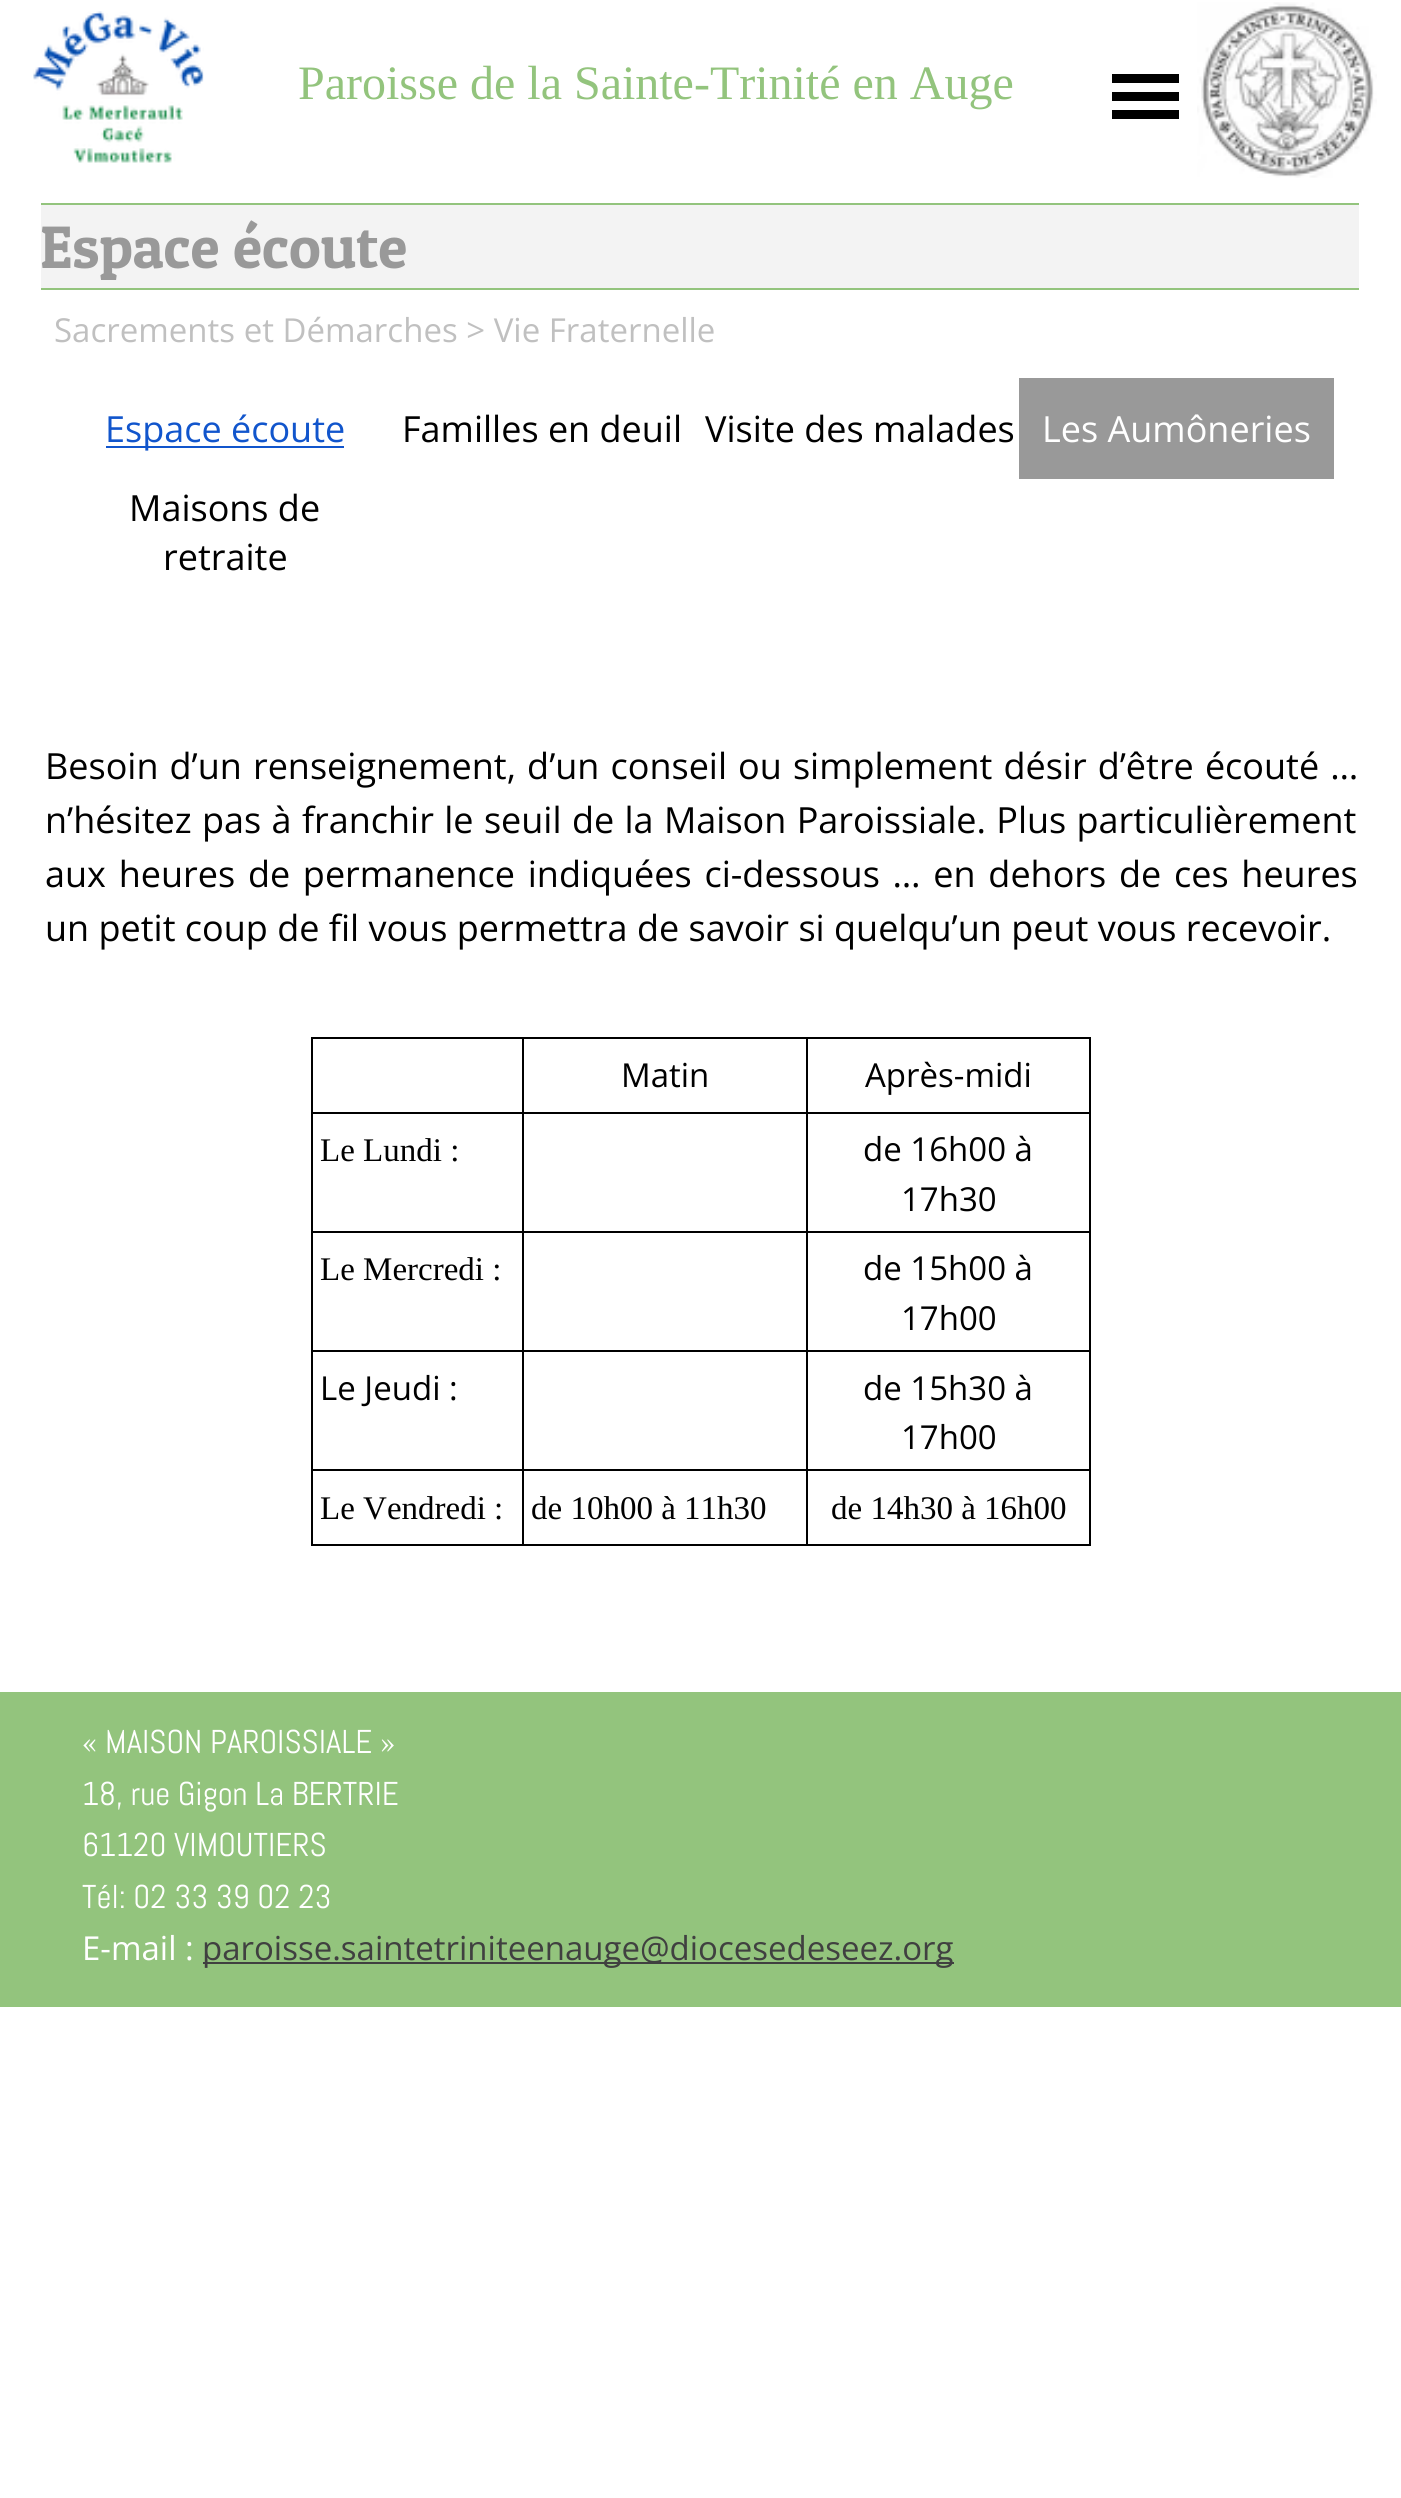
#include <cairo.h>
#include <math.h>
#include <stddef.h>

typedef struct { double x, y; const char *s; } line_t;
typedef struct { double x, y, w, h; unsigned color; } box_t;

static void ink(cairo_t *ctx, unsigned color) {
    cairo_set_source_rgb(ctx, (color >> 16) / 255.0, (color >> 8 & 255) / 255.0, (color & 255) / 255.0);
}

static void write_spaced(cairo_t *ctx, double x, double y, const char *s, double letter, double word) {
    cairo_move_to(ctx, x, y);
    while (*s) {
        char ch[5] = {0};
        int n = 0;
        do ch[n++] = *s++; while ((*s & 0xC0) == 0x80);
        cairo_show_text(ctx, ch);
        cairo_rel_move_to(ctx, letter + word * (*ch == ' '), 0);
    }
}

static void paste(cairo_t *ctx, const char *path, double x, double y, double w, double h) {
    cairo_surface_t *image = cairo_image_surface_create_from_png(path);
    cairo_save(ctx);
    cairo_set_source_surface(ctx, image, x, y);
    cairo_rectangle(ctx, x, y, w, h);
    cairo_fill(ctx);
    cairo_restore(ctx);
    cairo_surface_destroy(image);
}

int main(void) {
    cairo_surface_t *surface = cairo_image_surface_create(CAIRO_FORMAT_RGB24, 1401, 2498);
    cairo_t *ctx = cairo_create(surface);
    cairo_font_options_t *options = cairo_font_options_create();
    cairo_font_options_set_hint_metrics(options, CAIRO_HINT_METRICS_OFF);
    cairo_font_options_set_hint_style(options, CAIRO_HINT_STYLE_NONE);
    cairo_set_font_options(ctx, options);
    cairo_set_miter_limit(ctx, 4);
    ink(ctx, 0xFFFFFF);
    cairo_paint(ctx);
    paste(ctx, "media/1.png", 33, 11, 171, 152);
    cairo_select_font_face(ctx, "Liberation Serif", CAIRO_FONT_SLANT_NORMAL, CAIRO_FONT_WEIGHT_NORMAL);
    cairo_set_font_size(ctx, 48);
    ink(ctx, 0x93C47D);
    cairo_move_to(ctx, 298, 99);
    cairo_show_text(ctx, "Paroisse de la Sainte-Trinité en Auge");
    {
        static const box_t items[] = {
            {1112, 74, 67, 9, 0x000000},
            {1112, 92, 67, 9, 0x000000},
            {1112, 110, 67, 9, 0x000000},
        };
        for (size_t i = 0; i < sizeof items / sizeof *items; i++) {
            ink(ctx, items[i].color);
            cairo_rectangle(ctx, items[i].x, items[i].y, items[i].w, items[i].h);
            cairo_fill(ctx);
        }
    }
    paste(ctx, "media/2.png", 1197, 2, 180, 176);
    {
        static const box_t items[] = {
            {41, 205, 1318, 83, 0xF3F3F3},
            {41, 203, 1318, 2, 0x93C47D},
            {41, 288, 1318, 2, 0x93C47D},
        };
        for (size_t i = 0; i < sizeof items / sizeof *items; i++) {
            ink(ctx, items[i].color);
            cairo_rectangle(ctx, items[i].x, items[i].y, items[i].w, items[i].h);
            cairo_fill(ctx);
        }
    }
    cairo_select_font_face(ctx, "Patua One", CAIRO_FONT_SLANT_NORMAL, CAIRO_FONT_WEIGHT_NORMAL);
    cairo_set_font_size(ctx, 60);
    ink(ctx, 0x999999);
    cairo_move_to(ctx, 40, 268);
    cairo_show_text(ctx, "Espace écoute");
    cairo_select_font_face(ctx, "Open Sans", CAIRO_FONT_SLANT_NORMAL, CAIRO_FONT_WEIGHT_NORMAL);
    cairo_set_font_size(ctx, 33);
    ink(ctx, 0xC0C0C0);
    cairo_move_to(ctx, 54, 342);
    cairo_show_text(ctx, "Sacrements et Démarches > Vie Fraternelle");
    ink(ctx, 0x1155CC);
    cairo_rectangle(ctx, 106, 446, 238, 2);
    cairo_fill(ctx);
    cairo_set_font_size(ctx, 36);
    cairo_move_to(ctx, 105, 442);
    cairo_show_text(ctx, "Espace écoute");
    ink(ctx, 0x000000);
    cairo_move_to(ctx, 402, 442);
    cairo_show_text(ctx, "Familles en deuil");
    cairo_move_to(ctx, 705, 442);
    cairo_show_text(ctx, "Visite des malades");
    ink(ctx, 0x999999);
    cairo_rectangle(ctx, 1019, 378, 315, 101);
    cairo_fill(ctx);
    ink(ctx, 0xFFFFFF);
    cairo_move_to(ctx, 1042, 442);
    cairo_show_text(ctx, "Les Aumôneries");
    ink(ctx, 0x000000);
    cairo_move_to(ctx, 129, 521);
    cairo_show_text(ctx, "Maisons de");
    cairo_move_to(ctx, 163, 570);
    cairo_show_text(ctx, "retraite");
    write_spaced(ctx, 45, 779, "Besoin d’un renseignement, d’un conseil ou simplement désir d’être écouté …", 0, 1.75);
    write_spaced(ctx, 45, 833, "n’hésitez pas à franchir le seuil de la Maison Paroissiale. Plus particulièrement", 0, 1);
    write_spaced(ctx, 45, 887, "aux heures de permanence indiquées ci-dessous … en dehors de ces heures", 0, 3.4);
    cairo_move_to(ctx, 45, 941);
    cairo_show_text(ctx, "un petit coup de fil vous permettra de savoir si quelqu’un peut vous recevoir.");
    {
        static const box_t items[] = {
            {806, 1037, 285, 2, 0x000000},
            {806, 1112, 285, 2, 0x000000},
            {806, 1231, 285, 2, 0x000000},
            {806, 1350, 285, 2, 0x000000},
            {806, 1469, 285, 2, 0x000000},
            {1089, 1469, 2, 77, 0x000000},
            {806, 1544, 285, 2, 0x000000},
            {806, 1469, 2, 77, 0x000000},
            {522, 1469, 286, 2, 0x000000},
            {806, 1350, 2, 122, 0x000000},
            {522, 1350, 286, 2, 0x000000},
            {806, 1231, 2, 121, 0x000000},
            {522, 1231, 286, 2, 0x000000},
            {806, 1112, 2, 121, 0x000000},
            {522, 1112, 286, 2, 0x000000},
            {806, 1037, 2, 77, 0x000000},
            {522, 1037, 286, 2, 0x000000},
            {522, 1544, 286, 2, 0x000000},
            {522, 1469, 2, 77, 0x000000},
            {311, 1469, 213, 2, 0x000000},
            {522, 1350, 2, 122, 0x000000},
            {311, 1350, 213, 2, 0x000000},
            {522, 1231, 2, 121, 0x000000},
            {311, 1231, 213, 2, 0x000000},
            {522, 1112, 2, 121, 0x000000},
            {311, 1112, 213, 2, 0x000000},
            {522, 1037, 2, 77, 0x000000},
            {311, 1037, 213, 2, 0x000000},
            {311, 1544, 213, 2, 0x000000},
            {311, 1469, 2, 77, 0x000000},
            {311, 1350, 2, 122, 0x000000},
            {311, 1231, 2, 121, 0x000000},
            {311, 1112, 2, 121, 0x000000},
            {311, 1037, 2, 77, 0x000000},
        };
        for (size_t i = 0; i < sizeof items / sizeof *items; i++) {
            ink(ctx, items[i].color);
            cairo_rectangle(ctx, items[i].x, items[i].y, items[i].w, items[i].h);
            cairo_fill(ctx);
        }
    }
    cairo_set_font_size(ctx, 33);
    cairo_move_to(ctx, 621, 1087);
    cairo_show_text(ctx, "Matin");
    {
        static const box_t items[] = {
            {1089, 1350, 2, 122, 0x000000},
            {1089, 1231, 2, 121, 0x000000},
            {1089, 1112, 2, 121, 0x000000},
            {1089, 1037, 2, 77, 0x000000},
        };
        for (size_t i = 0; i < sizeof items / sizeof *items; i++) {
            ink(ctx, items[i].color);
            cairo_rectangle(ctx, items[i].x, items[i].y, items[i].w, items[i].h);
            cairo_fill(ctx);
        }
    }
    cairo_move_to(ctx, 865, 1087);
    cairo_show_text(ctx, "Après-midi");
    cairo_select_font_face(ctx, "Liberation Serif", CAIRO_FONT_SLANT_NORMAL, CAIRO_FONT_WEIGHT_NORMAL);
    cairo_move_to(ctx, 320, 1161);
    cairo_show_text(ctx, "Le Lundi :");
    cairo_select_font_face(ctx, "Open Sans", CAIRO_FONT_SLANT_NORMAL, CAIRO_FONT_WEIGHT_NORMAL);
    cairo_move_to(ctx, 863, 1161);
    cairo_show_text(ctx, "de 16h00 à");
    cairo_move_to(ctx, 901, 1211);
    cairo_show_text(ctx, "17h30");
    cairo_select_font_face(ctx, "Liberation Serif", CAIRO_FONT_SLANT_NORMAL, CAIRO_FONT_WEIGHT_NORMAL);
    cairo_move_to(ctx, 320, 1280);
    cairo_show_text(ctx, "Le Mercredi :");
    cairo_select_font_face(ctx, "Open Sans", CAIRO_FONT_SLANT_NORMAL, CAIRO_FONT_WEIGHT_NORMAL);
    {
        static const line_t items[] = {
            {863, 1280, "de 15h00 à"},
            {901, 1330, "17h00"},
            {320, 1400, "Le Jeudi :"},
            {863, 1400, "de 15h30 à"},
            {901, 1449, "17h00"},
        };
        for (size_t i = 0; i < sizeof items / sizeof *items; i++) {
            cairo_move_to(ctx, items[i].x, items[i].y);
            cairo_show_text(ctx, items[i].s);
        }
    }
    cairo_select_font_face(ctx, "Liberation Serif", CAIRO_FONT_SLANT_NORMAL, CAIRO_FONT_WEIGHT_NORMAL);
    {
        static const line_t items[] = {
            {320, 1519, "Le Vendredi :"},
            {531, 1519, "de 10h00 à 11h30"},
            {831, 1519, "de 14h30 à 16h00"},
        };
        for (size_t i = 0; i < sizeof items / sizeof *items; i++) {
            cairo_move_to(ctx, items[i].x, items[i].y);
            cairo_show_text(ctx, items[i].s);
        }
    }
    ink(ctx, 0x93C47D);
    cairo_rectangle(ctx, 0, 1692, 1401, 315);
    cairo_fill(ctx);
    cairo_select_font_face(ctx, "Abel", CAIRO_FONT_SLANT_NORMAL, CAIRO_FONT_WEIGHT_NORMAL);
    ink(ctx, 0xFFFFFF);
    {
        static const line_t items[] = {
            {82, 1753, "« MAISON PAROISSIALE »"},
            {82, 1805, "18, rue Gigon La BERTRIE"},
            {82, 1856, "61120 VIMOUTIERS"},
            {82, 1908, "Tél: 02 33 39 02 23"},
        };
        for (size_t i = 0; i < sizeof items / sizeof *items; i++) {
            cairo_move_to(ctx, items[i].x, items[i].y);
            cairo_show_text(ctx, items[i].s);
        }
    }
    cairo_select_font_face(ctx, "Open Sans", CAIRO_FONT_SLANT_NORMAL, CAIRO_FONT_WEIGHT_NORMAL);
    cairo_move_to(ctx, 82, 1960);
    cairo_show_text(ctx, "E-mail :");
    ink(ctx, 0x404040);
    cairo_rectangle(ctx, 203, 1962, 751, 2);
    cairo_fill(ctx);
    cairo_move_to(ctx, 202, 1960);
    cairo_show_text(ctx, "paroisse.saintetriniteenauge@diocesedeseez.org");
    cairo_surface_write_to_png(surface, "image.png");
    cairo_font_options_destroy(options);
    cairo_destroy(ctx);
    cairo_surface_destroy(surface);
    return 0;
}
